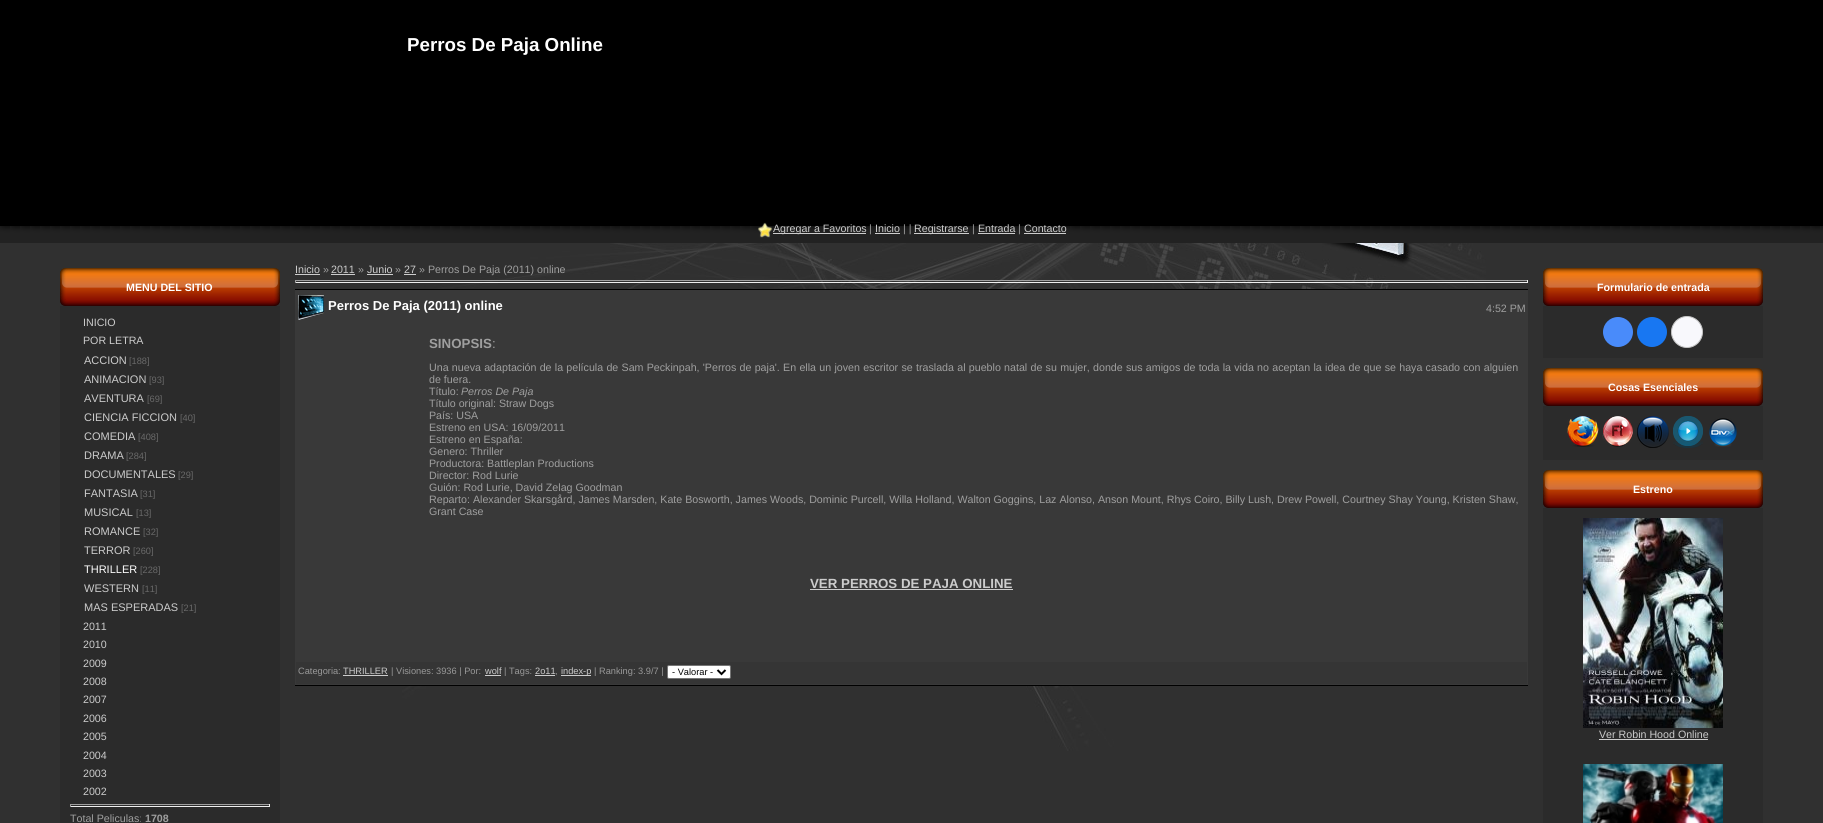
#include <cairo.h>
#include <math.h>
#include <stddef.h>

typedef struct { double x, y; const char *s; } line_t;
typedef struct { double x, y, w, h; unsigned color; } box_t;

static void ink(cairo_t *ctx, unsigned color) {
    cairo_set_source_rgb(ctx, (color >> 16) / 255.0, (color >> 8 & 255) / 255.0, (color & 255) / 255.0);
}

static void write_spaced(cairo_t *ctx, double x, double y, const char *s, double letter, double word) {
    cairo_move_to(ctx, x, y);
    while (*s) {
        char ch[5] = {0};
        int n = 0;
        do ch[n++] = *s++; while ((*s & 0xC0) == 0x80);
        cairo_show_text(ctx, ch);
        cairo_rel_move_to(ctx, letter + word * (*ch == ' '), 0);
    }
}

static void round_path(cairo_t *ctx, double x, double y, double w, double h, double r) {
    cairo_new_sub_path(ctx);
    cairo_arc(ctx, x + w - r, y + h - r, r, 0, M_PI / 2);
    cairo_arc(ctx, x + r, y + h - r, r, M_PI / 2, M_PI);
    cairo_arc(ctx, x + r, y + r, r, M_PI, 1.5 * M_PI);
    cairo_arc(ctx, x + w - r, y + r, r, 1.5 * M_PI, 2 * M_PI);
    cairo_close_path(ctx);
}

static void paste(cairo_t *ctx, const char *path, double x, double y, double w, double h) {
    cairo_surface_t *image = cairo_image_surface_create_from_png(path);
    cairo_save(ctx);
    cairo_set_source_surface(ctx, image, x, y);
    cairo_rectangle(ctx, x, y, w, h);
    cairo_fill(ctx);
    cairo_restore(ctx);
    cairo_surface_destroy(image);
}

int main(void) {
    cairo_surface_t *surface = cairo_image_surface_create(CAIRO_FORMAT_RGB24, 1823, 823);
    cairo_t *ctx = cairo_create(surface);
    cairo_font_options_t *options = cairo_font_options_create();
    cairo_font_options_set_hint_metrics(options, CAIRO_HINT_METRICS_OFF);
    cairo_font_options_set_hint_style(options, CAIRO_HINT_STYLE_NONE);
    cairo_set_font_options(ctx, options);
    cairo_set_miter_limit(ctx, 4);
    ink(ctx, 0x303030);
    cairo_paint(ctx);
    paste(ctx, "media/1.png", 0, 0, 1823, 243);
    cairo_select_font_face(ctx, "Liberation Sans", CAIRO_FONT_SLANT_NORMAL, CAIRO_FONT_WEIGHT_BOLD);
    cairo_set_font_size(ctx, 18.75);
    ink(ctx, 0xFFFFFF);
    cairo_move_to(ctx, 407, 51);
    cairo_show_text(ctx, "Perros De Paja Online");
    paste(ctx, "media/2.png", 758, 222, 15, 16);
    ink(ctx, 0xCCCCCC);
    cairo_rectangle(ctx, 773, 233, 93, 1);
    cairo_fill(ctx);
    cairo_select_font_face(ctx, "Liberation Sans", CAIRO_FONT_SLANT_NORMAL, CAIRO_FONT_WEIGHT_NORMAL);
    cairo_set_font_size(ctx, 10.67);
    cairo_move_to(ctx, 773, 232);
    cairo_show_text(ctx, "Agregar a Favoritos");
    ink(ctx, 0x9F9F9F);
    cairo_move_to(ctx, 869, 232);
    cairo_show_text(ctx, "|");
    ink(ctx, 0xCCCCCC);
    cairo_move_to(ctx, 875, 232);
    cairo_show_text(ctx, "Inicio");
    cairo_rectangle(ctx, 875, 233, 25, 1);
    cairo_fill(ctx);
    ink(ctx, 0x9F9F9F);
    cairo_move_to(ctx, 903, 232);
    cairo_show_text(ctx, "| |");
    ink(ctx, 0xCCCCCC);
    cairo_rectangle(ctx, 914, 233, 55, 1);
    cairo_fill(ctx);
    cairo_move_to(ctx, 914, 232);
    cairo_show_text(ctx, "Registrarse");
    ink(ctx, 0x9F9F9F);
    cairo_move_to(ctx, 972, 232);
    cairo_show_text(ctx, "|");
    ink(ctx, 0xCCCCCC);
    cairo_move_to(ctx, 978, 232);
    cairo_show_text(ctx, "Entrada");
    cairo_rectangle(ctx, 978, 233, 37, 1);
    cairo_fill(ctx);
    ink(ctx, 0x9F9F9F);
    cairo_move_to(ctx, 1018, 232);
    cairo_show_text(ctx, "|");
    ink(ctx, 0xCCCCCC);
    cairo_move_to(ctx, 1024, 232);
    cairo_show_text(ctx, "Contacto");
    cairo_rectangle(ctx, 1024, 233, 42, 1);
    cairo_fill(ctx);
    paste(ctx, "media/3.png", 402, 243, 1084, 508);
    paste(ctx, "media/4.png", 60, 268, 220, 38);
    cairo_select_font_face(ctx, "Liberation Sans", CAIRO_FONT_SLANT_NORMAL, CAIRO_FONT_WEIGHT_BOLD);
    ink(ctx, 0xFFFFFF);
    cairo_move_to(ctx, 126, 291);
    cairo_show_text(ctx, "MENU DEL SITIO");
    ink(ctx, 0x2B2B2B);
    cairo_rectangle(ctx, 60, 306, 220, 517);
    cairo_fill(ctx);
    cairo_select_font_face(ctx, "Liberation Sans", CAIRO_FONT_SLANT_NORMAL, CAIRO_FONT_WEIGHT_NORMAL);
    ink(ctx, 0xCCCCCC);
    cairo_move_to(ctx, 83, 326);
    cairo_show_text(ctx, "INICIO");
    cairo_move_to(ctx, 83, 344);
    cairo_show_text(ctx, "POR LETRA");
    cairo_set_font_size(ctx, 11);
    cairo_move_to(ctx, 84, 364);
    cairo_show_text(ctx, "ACCION");
    cairo_set_font_size(ctx, 9.25);
    ink(ctx, 0x696969);
    cairo_move_to(ctx, 129, 364);
    cairo_show_text(ctx, "[188]");
    cairo_set_font_size(ctx, 11);
    ink(ctx, 0xCCCCCC);
    cairo_move_to(ctx, 84, 383);
    cairo_show_text(ctx, "ANIMACION");
    cairo_set_font_size(ctx, 9.25);
    ink(ctx, 0x696969);
    cairo_move_to(ctx, 149, 383);
    cairo_show_text(ctx, "[93]");
    cairo_set_font_size(ctx, 11);
    ink(ctx, 0xCCCCCC);
    cairo_move_to(ctx, 84, 402);
    cairo_show_text(ctx, "AVENTURA");
    cairo_set_font_size(ctx, 9.25);
    ink(ctx, 0x696969);
    cairo_move_to(ctx, 147, 402);
    cairo_show_text(ctx, "[69]");
    cairo_set_font_size(ctx, 11);
    ink(ctx, 0xCCCCCC);
    cairo_move_to(ctx, 84, 421);
    cairo_show_text(ctx, "CIENCIA FICCION");
    cairo_set_font_size(ctx, 9.25);
    ink(ctx, 0x696969);
    cairo_move_to(ctx, 180, 421);
    cairo_show_text(ctx, "[40]");
    cairo_set_font_size(ctx, 11);
    ink(ctx, 0xCCCCCC);
    cairo_move_to(ctx, 84, 440);
    cairo_show_text(ctx, "COMEDIA");
    cairo_set_font_size(ctx, 9.25);
    ink(ctx, 0x696969);
    cairo_move_to(ctx, 138, 440);
    cairo_show_text(ctx, "[408]");
    cairo_set_font_size(ctx, 11);
    ink(ctx, 0xCCCCCC);
    cairo_move_to(ctx, 84, 459);
    cairo_show_text(ctx, "DRAMA");
    cairo_set_font_size(ctx, 9.25);
    ink(ctx, 0x696969);
    cairo_move_to(ctx, 126, 459);
    cairo_show_text(ctx, "[284]");
    cairo_set_font_size(ctx, 11);
    ink(ctx, 0xCCCCCC);
    cairo_move_to(ctx, 84, 478);
    cairo_show_text(ctx, "DOCUMENTALES");
    cairo_set_font_size(ctx, 9.25);
    ink(ctx, 0x696969);
    cairo_move_to(ctx, 178, 478);
    cairo_show_text(ctx, "[29]");
    cairo_set_font_size(ctx, 11);
    ink(ctx, 0xCCCCCC);
    cairo_move_to(ctx, 84, 497);
    cairo_show_text(ctx, "FANTASIA");
    cairo_set_font_size(ctx, 9.25);
    ink(ctx, 0x696969);
    cairo_move_to(ctx, 140, 497);
    cairo_show_text(ctx, "[31]");
    cairo_set_font_size(ctx, 11);
    ink(ctx, 0xCCCCCC);
    cairo_move_to(ctx, 84, 516);
    cairo_show_text(ctx, "MUSICAL");
    cairo_set_font_size(ctx, 9.25);
    ink(ctx, 0x696969);
    cairo_move_to(ctx, 136, 516);
    cairo_show_text(ctx, "[13]");
    cairo_set_font_size(ctx, 11);
    ink(ctx, 0xCCCCCC);
    cairo_move_to(ctx, 84, 535);
    cairo_show_text(ctx, "ROMANCE");
    cairo_set_font_size(ctx, 9.25);
    ink(ctx, 0x696969);
    cairo_move_to(ctx, 143, 535);
    cairo_show_text(ctx, "[32]");
    cairo_set_font_size(ctx, 11);
    ink(ctx, 0xCCCCCC);
    cairo_move_to(ctx, 84, 554);
    cairo_show_text(ctx, "TERROR");
    cairo_set_font_size(ctx, 9.25);
    ink(ctx, 0x696969);
    cairo_move_to(ctx, 133, 554);
    cairo_show_text(ctx, "[260]");
    cairo_set_font_size(ctx, 11);
    ink(ctx, 0xFFFFFF);
    cairo_move_to(ctx, 84, 573);
    cairo_show_text(ctx, "THRILLER");
    cairo_set_font_size(ctx, 9.25);
    ink(ctx, 0x696969);
    cairo_move_to(ctx, 140, 573);
    cairo_show_text(ctx, "[228]");
    cairo_set_font_size(ctx, 11);
    ink(ctx, 0xCCCCCC);
    cairo_move_to(ctx, 84, 592);
    cairo_show_text(ctx, "WESTERN");
    cairo_set_font_size(ctx, 9.25);
    ink(ctx, 0x696969);
    cairo_move_to(ctx, 142, 592);
    cairo_show_text(ctx, "[11]");
    cairo_set_font_size(ctx, 11);
    ink(ctx, 0xCCCCCC);
    cairo_move_to(ctx, 84, 611);
    cairo_show_text(ctx, "MAS ESPERADAS");
    cairo_set_font_size(ctx, 9.25);
    ink(ctx, 0x696969);
    cairo_move_to(ctx, 181, 611);
    cairo_show_text(ctx, "[21]");
    cairo_set_font_size(ctx, 10.67);
    ink(ctx, 0xCCCCCC);
    {
        static const line_t items[] = {
            {83, 630, "2011"},
            {83, 648, "2010"},
            {83, 667, "2009"},
            {83, 685, "2008"},
            {83, 703, "2007"},
            {83, 722, "2006"},
            {83, 740, "2005"},
            {83, 759, "2004"},
            {83, 777, "2003"},
            {83, 795, "2002"},
        };
        for (size_t i = 0; i < sizeof items / sizeof *items; i++) {
            cairo_move_to(ctx, items[i].x, items[i].y);
            cairo_show_text(ctx, items[i].s);
        }
    }
    {
        static const box_t items[] = {
            {70, 804, 200, 1, 0x9F9F9F},
            {269, 804, 1, 3, 0xEEEEEE},
            {70, 806, 200, 1, 0xEEEEEE},
            {70, 804, 1, 3, 0x9F9F9F},
        };
        for (size_t i = 0; i < sizeof items / sizeof *items; i++) {
            ink(ctx, items[i].color);
            cairo_rectangle(ctx, items[i].x, items[i].y, items[i].w, items[i].h);
            cairo_fill(ctx);
        }
    }
    cairo_move_to(ctx, 70, 822);
    cairo_show_text(ctx, "Total Peliculas:");
    cairo_select_font_face(ctx, "Liberation Sans", CAIRO_FONT_SLANT_NORMAL, CAIRO_FONT_WEIGHT_BOLD);
    cairo_move_to(ctx, 145, 822);
    cairo_show_text(ctx, "1708");
    cairo_select_font_face(ctx, "Liberation Sans", CAIRO_FONT_SLANT_NORMAL, CAIRO_FONT_WEIGHT_NORMAL);
    ink(ctx, 0xCCCCCC);
    cairo_move_to(ctx, 295, 273);
    cairo_show_text(ctx, "Inicio");
    cairo_rectangle(ctx, 295, 274, 25, 1);
    cairo_fill(ctx);
    ink(ctx, 0x9F9F9F);
    cairo_move_to(ctx, 323, 273);
    cairo_show_text(ctx, "»");
    ink(ctx, 0xCCCCCC);
    cairo_move_to(ctx, 331, 273);
    cairo_show_text(ctx, "2011");
    cairo_rectangle(ctx, 331, 274, 24, 1);
    cairo_fill(ctx);
    ink(ctx, 0x9F9F9F);
    cairo_move_to(ctx, 358, 273);
    cairo_show_text(ctx, "»");
    ink(ctx, 0xCCCCCC);
    cairo_move_to(ctx, 367, 273);
    cairo_show_text(ctx, "Junio");
    cairo_rectangle(ctx, 367, 274, 26, 1);
    cairo_fill(ctx);
    ink(ctx, 0x9F9F9F);
    cairo_move_to(ctx, 395, 273);
    cairo_show_text(ctx, "»");
    ink(ctx, 0xCCCCCC);
    cairo_move_to(ctx, 404, 273);
    cairo_show_text(ctx, "27");
    cairo_rectangle(ctx, 404, 274, 12, 1);
    cairo_fill(ctx);
    ink(ctx, 0x9F9F9F);
    cairo_move_to(ctx, 419, 273);
    cairo_show_text(ctx, "» Perros De Paja (2011) online");
    {
        static const box_t items[] = {
            {295, 280, 1233, 1, 0x9F9F9F},
            {1527, 280, 1, 3, 0xEEEEEE},
            {295, 282, 1233, 1, 0xEEEEEE},
            {295, 280, 1, 3, 0x9F9F9F},
            {295, 290, 1233, 395, 0x393939},
            {295, 289, 1233, 1, 0x000000},
            {295, 685, 1233, 1, 0x000000},
        };
        for (size_t i = 0; i < sizeof items / sizeof *items; i++) {
            ink(ctx, items[i].color);
            cairo_rectangle(ctx, items[i].x, items[i].y, items[i].w, items[i].h);
            cairo_fill(ctx);
        }
    }
    paste(ctx, "media/5.png", 298, 295, 26, 25);
    cairo_select_font_face(ctx, "Liberation Sans", CAIRO_FONT_SLANT_NORMAL, CAIRO_FONT_WEIGHT_BOLD);
    cairo_set_font_size(ctx, 13);
    ink(ctx, 0xFFFFFF);
    cairo_move_to(ctx, 328, 310);
    cairo_show_text(ctx, "Perros De Paja (2011) online");
    cairo_select_font_face(ctx, "Liberation Sans", CAIRO_FONT_SLANT_NORMAL, CAIRO_FONT_WEIGHT_NORMAL);
    cairo_set_font_size(ctx, 10.67);
    ink(ctx, 0x9F9F9F);
    cairo_move_to(ctx, 1486, 312);
    cairo_show_text(ctx, "4:52 PM");
    cairo_select_font_face(ctx, "Liberation Sans", CAIRO_FONT_SLANT_NORMAL, CAIRO_FONT_WEIGHT_BOLD);
    cairo_set_font_size(ctx, 13.3);
    cairo_move_to(ctx, 429, 348);
    cairo_show_text(ctx, "SINOPSIS");
    cairo_select_font_face(ctx, "Liberation Sans", CAIRO_FONT_SLANT_NORMAL, CAIRO_FONT_WEIGHT_NORMAL);
    cairo_move_to(ctx, 492, 348);
    cairo_show_text(ctx, ":");
    cairo_set_font_size(ctx, 10.67);
    write_spaced(ctx, 429, 371, "Una nueva adaptación de la película de Sam Peckinpah, 'Perros de paja'. En ella un joven escritor se traslada al pueblo natal de su mujer, donde sus amigos de toda la vida no aceptan la idea de que se haya casado con alguien", 0, 0.3);
    cairo_move_to(ctx, 429, 383);
    cairo_show_text(ctx, "de fuera.");
    cairo_move_to(ctx, 429, 395);
    cairo_show_text(ctx, "Título:");
    cairo_select_font_face(ctx, "Liberation Sans", CAIRO_FONT_SLANT_ITALIC, CAIRO_FONT_WEIGHT_NORMAL);
    cairo_move_to(ctx, 461, 395);
    cairo_show_text(ctx, "Perros De Paja");
    cairo_select_font_face(ctx, "Liberation Sans", CAIRO_FONT_SLANT_NORMAL, CAIRO_FONT_WEIGHT_NORMAL);
    {
        static const line_t items[] = {
            {429, 407, "Título original: Straw Dogs"},
            {429, 419, "País: USA"},
            {429, 431, "Estreno en USA: 16/09/2011"},
            {429, 443, "Estreno en España:"},
            {429, 455, "Genero: Thriller"},
            {429, 467, "Productora: Battleplan Productions"},
            {429, 479, "Director: Rod Lurie"},
            {429, 491, "Guión: Rod Lurie, David Zelag Goodman"},
            {429, 503, "Reparto: Alexander Skarsgård, James Marsden, Kate Bosworth, James Woods, Dominic Purcell, Willa Holland, Walton Goggins, Laz Alonso, Anson Mount, Rhys Coiro, Billy Lush, Drew Powell, Courtney Shay Young, Kristen Shaw,"},
            {429, 515, "Grant Case"},
        };
        for (size_t i = 0; i < sizeof items / sizeof *items; i++) {
            cairo_move_to(ctx, items[i].x, items[i].y);
            cairo_show_text(ctx, items[i].s);
        }
    }
    cairo_select_font_face(ctx, "Liberation Sans", CAIRO_FONT_SLANT_NORMAL, CAIRO_FONT_WEIGHT_BOLD);
    cairo_set_font_size(ctx, 13.3);
    ink(ctx, 0xCCCCCC);
    cairo_move_to(ctx, 810, 588);
    cairo_show_text(ctx, "VER PERROS DE PAJA ONLINE");
    cairo_rectangle(ctx, 810, 589, 203, 1);
    cairo_fill(ctx);
    ink(ctx, 0x353535);
    cairo_rectangle(ctx, 296, 662, 1231, 22);
    cairo_fill(ctx);
    cairo_select_font_face(ctx, "Liberation Sans", CAIRO_FONT_SLANT_NORMAL, CAIRO_FONT_WEIGHT_NORMAL);
    cairo_set_font_size(ctx, 9.25);
    ink(ctx, 0x999999);
    cairo_move_to(ctx, 298, 674);
    cairo_show_text(ctx, "Categoria:");
    ink(ctx, 0xCCCCCC);
    cairo_move_to(ctx, 343, 674);
    cairo_show_text(ctx, "THRILLER");
    cairo_rectangle(ctx, 343, 675, 45, 1);
    cairo_fill(ctx);
    ink(ctx, 0x999999);
    cairo_move_to(ctx, 391, 674);
    cairo_show_text(ctx, "| Visiones: 3936 | Por:");
    ink(ctx, 0xCCCCCC);
    cairo_move_to(ctx, 485, 674);
    cairo_show_text(ctx, "wolf");
    cairo_rectangle(ctx, 485, 675, 16, 1);
    cairo_fill(ctx);
    ink(ctx, 0x999999);
    cairo_move_to(ctx, 504, 674);
    cairo_show_text(ctx, "| Tags:");
    ink(ctx, 0xCCCCCC);
    cairo_move_to(ctx, 535, 674);
    cairo_show_text(ctx, "2o11");
    ink(ctx, 0x999999);
    cairo_move_to(ctx, 555, 674);
    cairo_show_text(ctx, ",");
    ink(ctx, 0xCCCCCC);
    cairo_rectangle(ctx, 535, 675, 20, 1);
    cairo_fill(ctx);
    cairo_rectangle(ctx, 561, 675, 30, 1);
    cairo_fill(ctx);
    cairo_move_to(ctx, 561, 674);
    cairo_show_text(ctx, "index-p");
    ink(ctx, 0x999999);
    cairo_move_to(ctx, 594, 674);
    cairo_show_text(ctx, "| Ranking: 3.9/7 |");
    ink(ctx, 0xFFFFFF);
    round_path(ctx, 667.5, 665.5, 63, 13, 1.5);
    cairo_fill_preserve(ctx);
    ink(ctx, 0x767676);
    cairo_set_line_width(ctx, 1);
    cairo_stroke(ctx);
    cairo_new_path(ctx);
    cairo_move_to(ctx, 717.5, 670);
    cairo_line_to(ctx, 721.5, 674);
    cairo_line_to(ctx, 725.5, 670);
    ink(ctx, 0x000000);
    cairo_set_line_width(ctx, 2);
    cairo_stroke(ctx);
    cairo_move_to(ctx, 672, 675);
    cairo_show_text(ctx, "- Valorar -");
    paste(ctx, "media/4.png", 1543, 268, 220, 38);
    cairo_select_font_face(ctx, "Liberation Sans", CAIRO_FONT_SLANT_NORMAL, CAIRO_FONT_WEIGHT_BOLD);
    cairo_set_font_size(ctx, 10.67);
    ink(ctx, 0xFFFFFF);
    cairo_move_to(ctx, 1597, 291);
    cairo_show_text(ctx, "Formulario de entrada");
    ink(ctx, 0x2B2B2B);
    cairo_rectangle(ctx, 1543, 306, 220, 52);
    cairo_fill(ctx);
    ink(ctx, 0x498BFA);
    cairo_arc(ctx, 1618, 332, 15, 0, 2 * M_PI);
    cairo_fill(ctx);
    ink(ctx, 0x1877F2);
    cairo_arc(ctx, 1652, 332, 15, 0, 2 * M_PI);
    cairo_fill(ctx);
    ink(ctx, 0xF8F8FC);
    cairo_arc(ctx, 1687, 332, 15.5, 0, 2 * M_PI);
    cairo_fill_preserve(ctx);
    ink(ctx, 0xC4C4C4);
    cairo_set_line_width(ctx, 1);
    cairo_stroke(ctx);
    paste(ctx, "media/4.png", 1543, 368, 220, 38);
    ink(ctx, 0xFFFFFF);
    cairo_move_to(ctx, 1608, 391);
    cairo_show_text(ctx, "Cosas Esenciales");
    ink(ctx, 0x2B2B2B);
    cairo_rectangle(ctx, 1543, 406, 220, 54);
    cairo_fill(ctx);
    paste(ctx, "media/6.png", 1567, 416, 32, 31);
    paste(ctx, "media/7.png", 1602, 416, 31, 31);
    paste(ctx, "media/8.png", 1637, 416, 32, 32);
    paste(ctx, "media/9.png", 1673, 416, 30, 32);
    paste(ctx, "media/10.png", 1709, 418, 28, 29);
    paste(ctx, "media/4.png", 1543, 470, 220, 38);
    ink(ctx, 0xFFFFFF);
    cairo_move_to(ctx, 1633, 493);
    cairo_show_text(ctx, "Estreno");
    ink(ctx, 0x2B2B2B);
    cairo_rectangle(ctx, 1543, 508, 220, 315);
    cairo_fill(ctx);
    paste(ctx, "media/11.png", 1583, 518, 140, 210);
    cairo_select_font_face(ctx, "Liberation Sans", CAIRO_FONT_SLANT_NORMAL, CAIRO_FONT_WEIGHT_NORMAL);
    ink(ctx, 0xCCCCCC);
    cairo_move_to(ctx, 1599, 738);
    cairo_show_text(ctx, "Ver Robin Hood Online");
    cairo_rectangle(ctx, 1599, 739, 109, 1);
    cairo_fill(ctx);
    paste(ctx, "media/12.png", 1583, 764, 140, 59);
    cairo_surface_write_to_png(surface, "image.png");
    cairo_font_options_destroy(options);
    cairo_destroy(ctx);
    cairo_surface_destroy(surface);
    return 0;
}
